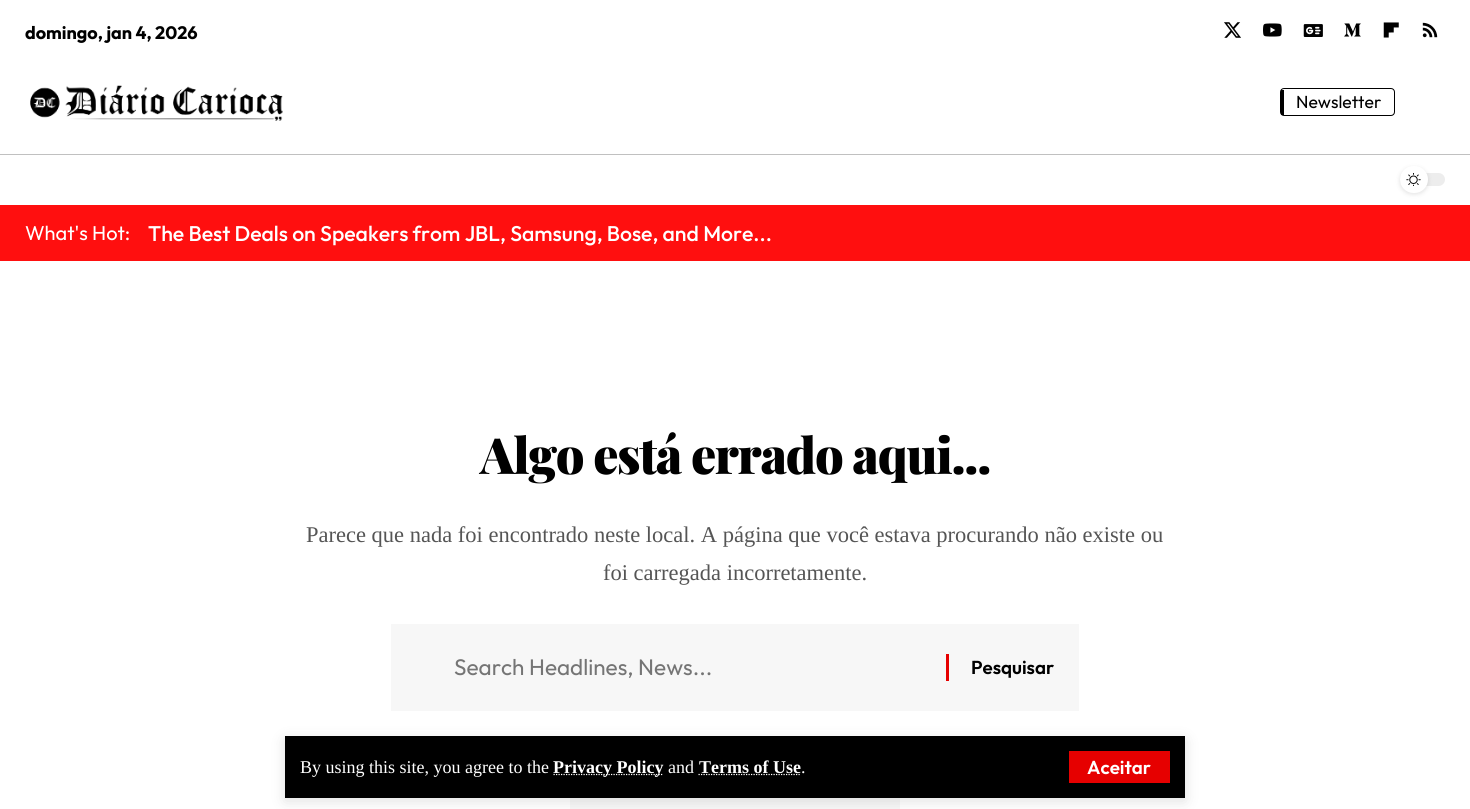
#include <cairo.h>
#include <math.h>
#include <stddef.h>


static void ink(cairo_t *ctx, unsigned color) {
    cairo_set_source_rgb(ctx, (color >> 16) / 255.0, (color >> 8 & 255) / 255.0, (color & 255) / 255.0);
}

static void write_spaced(cairo_t *ctx, double x, double y, const char *s, double letter, double word) {
    cairo_move_to(ctx, x, y);
    while (*s) {
        char ch[5] = {0};
        int n = 0;
        do ch[n++] = *s++; while ((*s & 0xC0) == 0x80);
        cairo_show_text(ctx, ch);
        cairo_rel_move_to(ctx, letter + word * (*ch == ' '), 0);
    }
}

static void round_path(cairo_t *ctx, double x, double y, double w, double h, double r) {
    cairo_new_sub_path(ctx);
    cairo_arc(ctx, x + w - r, y + h - r, r, 0, M_PI / 2);
    cairo_arc(ctx, x + r, y + h - r, r, M_PI / 2, M_PI);
    cairo_arc(ctx, x + r, y + r, r, M_PI, 1.5 * M_PI);
    cairo_arc(ctx, x + w - r, y + r, r, 1.5 * M_PI, 2 * M_PI);
    cairo_close_path(ctx);
}

static void blur_box(cairo_t *ctx, double x, double y, double w, double h, double r, double blur, double alpha) {
    cairo_push_group_with_content(ctx, CAIRO_CONTENT_ALPHA);
    cairo_set_operator(ctx, CAIRO_OPERATOR_SOURCE);
    for (int i = 15; i >= -15 && fmin(w, h) + blur * i / 3 > 0; i -= 2) {
        double e = blur * i / 6;
        cairo_set_source_rgba(ctx, 0, 0, 0, alpha * erfc((i - 1) / 8.5) / 2);
        round_path(ctx, x - e, y - e, w + 2 * e, h + 2 * e, fmax(0, fmin(r + e + blur * .6, fmin(w, h) / 2 + e)));
        cairo_fill(ctx);
    }
    cairo_pattern_t *soft = cairo_pop_group(ctx);
    cairo_mask(ctx, soft);
    cairo_pattern_destroy(soft);
}

static void paste(cairo_t *ctx, const char *path, double x, double y, double w, double h) {
    cairo_surface_t *image = cairo_image_surface_create_from_png(path);
    cairo_save(ctx);
    cairo_set_source_surface(ctx, image, x, y);
    cairo_rectangle(ctx, x, y, w, h);
    cairo_fill(ctx);
    cairo_restore(ctx);
    cairo_surface_destroy(image);
}

int main(void) {
    cairo_surface_t *surface = cairo_image_surface_create(CAIRO_FORMAT_RGB24, 1470, 809);
    cairo_t *ctx = cairo_create(surface);
    cairo_font_options_t *options = cairo_font_options_create();
    cairo_font_options_set_hint_metrics(options, CAIRO_HINT_METRICS_OFF);
    cairo_font_options_set_hint_style(options, CAIRO_HINT_STYLE_NONE);
    cairo_set_font_options(ctx, options);
    cairo_set_miter_limit(ctx, 4);
    ink(ctx, 0xFFFFFF);
    cairo_paint(ctx);
    cairo_select_font_face(ctx, "Outfit", CAIRO_FONT_SLANT_NORMAL, CAIRO_FONT_WEIGHT_BOLD);
    cairo_set_font_size(ctx, 18);
    ink(ctx, 0x000000);
    cairo_move_to(ctx, 25, 39);
    cairo_show_text(ctx, "domingo, jan 4, 2026");
    paste(ctx, "media/1.png", 1224, 22, 17, 16);
    paste(ctx, "media/2.png", 1263, 23, 19, 14);
    paste(ctx, "media/3.png", 1303, 24, 20, 13);
    paste(ctx, "media/4.png", 1344, 23, 17, 14);
    paste(ctx, "media/5.png", 1383, 22, 16, 16);
    paste(ctx, "media/6.png", 1422, 22, 16, 16);
    ink(ctx, 0xC0C0C0);
    cairo_rectangle(ctx, 0, 154, 1470, 1);
    cairo_fill(ctx);
    paste(ctx, "media/7.png", 30, 85, 253, 36);
    round_path(ctx, 1280.5, 88.5, 114, 27, 3.5);
    ink(ctx, 0x000000);
    cairo_set_line_width(ctx, 1);
    cairo_stroke(ctx);
    cairo_rectangle(ctx, 1281, 90, 3, 25);
    cairo_fill(ctx);
    cairo_select_font_face(ctx, "Outfit", CAIRO_FONT_SLANT_NORMAL, CAIRO_FONT_WEIGHT_NORMAL);
    cairo_set_font_size(ctx, 17.5);
    cairo_move_to(ctx, 1296, 108);
    cairo_show_text(ctx, "Newsletter");
    ink(ctx, 0xEDEDED);
    round_path(ctx, 1400, 173, 45, 13, 6.5);
    cairo_fill(ctx);
    ink(ctx, 0x000000);
    blur_box(ctx, 1400, 168, 28, 26, 13, 2.5, 0.12);
    ink(ctx, 0xFFFFFF);
    round_path(ctx, 1400, 166, 28, 27, 13.5);
    cairo_fill(ctx);
    paste(ctx, "media/8.png", 1406, 173, 15, 13);
    ink(ctx, 0xFF0F0F);
    cairo_rectangle(ctx, 0, 205, 1470, 56);
    cairo_fill(ctx);
    cairo_set_font_size(ctx, 20);
    ink(ctx, 0xFFFFFF);
    cairo_move_to(ctx, 25, 240);
    cairo_show_text(ctx, "What's Hot:");
    cairo_select_font_face(ctx, "Outfit Medium", CAIRO_FONT_SLANT_NORMAL, CAIRO_FONT_WEIGHT_NORMAL);
    cairo_set_font_size(ctx, 21.25);
    cairo_move_to(ctx, 148, 241);
    cairo_show_text(ctx, "The Best Deals on Speakers from JBL, Samsung, Bose, and More...");
    ink(ctx, 0xF7F7F7);
    cairo_rectangle(ctx, 570, 798, 330, 11);
    cairo_fill(ctx);
    ink(ctx, 0x000000);
    blur_box(ctx, 285, 740, 900, 61, 0, 7.5, 0.12);
    ink(ctx, 0x000000);
    cairo_rectangle(ctx, 285, 736, 900, 62);
    cairo_fill(ctx);
    cairo_select_font_face(ctx, "Liberation Serif", CAIRO_FONT_SLANT_NORMAL, CAIRO_FONT_WEIGHT_NORMAL);
    cairo_set_font_size(ctx, 18);
    ink(ctx, 0xFFFFFF);
    cairo_move_to(ctx, 300, 773);
    cairo_show_text(ctx, "By using this site, you agree to the");
    cairo_new_path(ctx);
    cairo_move_to(ctx, 553.5, 774.5);
    cairo_line_to(ctx, 663.5, 774.5);
    cairo_set_line_width(ctx, 1.2);
    cairo_set_dash(ctx, (double[]){1.25, 1.25}, 2, 0);
    cairo_stroke(ctx);
    cairo_select_font_face(ctx, "Liberation Serif", CAIRO_FONT_SLANT_NORMAL, CAIRO_FONT_WEIGHT_BOLD);
    cairo_move_to(ctx, 553, 773);
    cairo_show_text(ctx, "Privacy Policy");
    cairo_select_font_face(ctx, "Liberation Serif", CAIRO_FONT_SLANT_NORMAL, CAIRO_FONT_WEIGHT_NORMAL);
    cairo_move_to(ctx, 668, 773);
    cairo_show_text(ctx, "and");
    cairo_new_path(ctx);
    cairo_move_to(ctx, 698.5, 774.5);
    cairo_line_to(ctx, 800.5, 774.5);
    cairo_stroke(ctx);
    cairo_select_font_face(ctx, "Liberation Serif", CAIRO_FONT_SLANT_NORMAL, CAIRO_FONT_WEIGHT_BOLD);
    cairo_move_to(ctx, 699, 773);
    cairo_show_text(ctx, "Terms of Use");
    cairo_select_font_face(ctx, "Liberation Serif", CAIRO_FONT_SLANT_NORMAL, CAIRO_FONT_WEIGHT_NORMAL);
    cairo_move_to(ctx, 801, 773);
    cairo_show_text(ctx, ".");
    ink(ctx, 0xE60000);
    cairo_rectangle(ctx, 1069, 751, 101, 32);
    cairo_fill(ctx);
    cairo_select_font_face(ctx, "Outfit SemiBold", CAIRO_FONT_SLANT_NORMAL, CAIRO_FONT_WEIGHT_NORMAL);
    cairo_set_font_size(ctx, 18.75);
    ink(ctx, 0xFFFFFF);
    cairo_move_to(ctx, 1087, 774);
    cairo_show_text(ctx, "Aceitar");
    cairo_select_font_face(ctx, "Playfair Display Black", CAIRO_FONT_SLANT_NORMAL, CAIRO_FONT_WEIGHT_NORMAL);
    cairo_set_font_size(ctx, 50);
    ink(ctx, 0x000000);
    write_spaced(ctx, 480, 474, "Algo está errado aqui...", -1.25, 0);
    cairo_select_font_face(ctx, "Liberation Serif", CAIRO_FONT_SLANT_NORMAL, CAIRO_FONT_WEIGHT_NORMAL);
    cairo_set_font_size(ctx, 22.5);
    ink(ctx, 0x555555);
    cairo_move_to(ctx, 306, 542);
    cairo_show_text(ctx, "Parece que nada foi encontrado neste local. A página que você estava procurando não existe ou");
    cairo_move_to(ctx, 603, 580);
    cairo_show_text(ctx, "foi carregada incorretamente.");
    ink(ctx, 0xF7F7F7);
    cairo_rectangle(ctx, 391, 624, 688, 87);
    cairo_fill(ctx);
    cairo_select_font_face(ctx, "Outfit", CAIRO_FONT_SLANT_NORMAL, CAIRO_FONT_WEIGHT_NORMAL);
    ink(ctx, 0x757575);
    cairo_move_to(ctx, 454, 675);
    cairo_show_text(ctx, "Search Headlines, News...");
    ink(ctx, 0xE60000);
    cairo_rectangle(ctx, 946, 654, 3, 27);
    cairo_fill(ctx);
    cairo_select_font_face(ctx, "Outfit SemiBold", CAIRO_FONT_SLANT_NORMAL, CAIRO_FONT_WEIGHT_NORMAL);
    cairo_set_font_size(ctx, 18.75);
    ink(ctx, 0x000000);
    cairo_move_to(ctx, 971, 674);
    cairo_show_text(ctx, "Pesquisar");
    cairo_surface_write_to_png(surface, "image.png");
    cairo_font_options_destroy(options);
    cairo_destroy(ctx);
    cairo_surface_destroy(surface);
    return 0;
}
